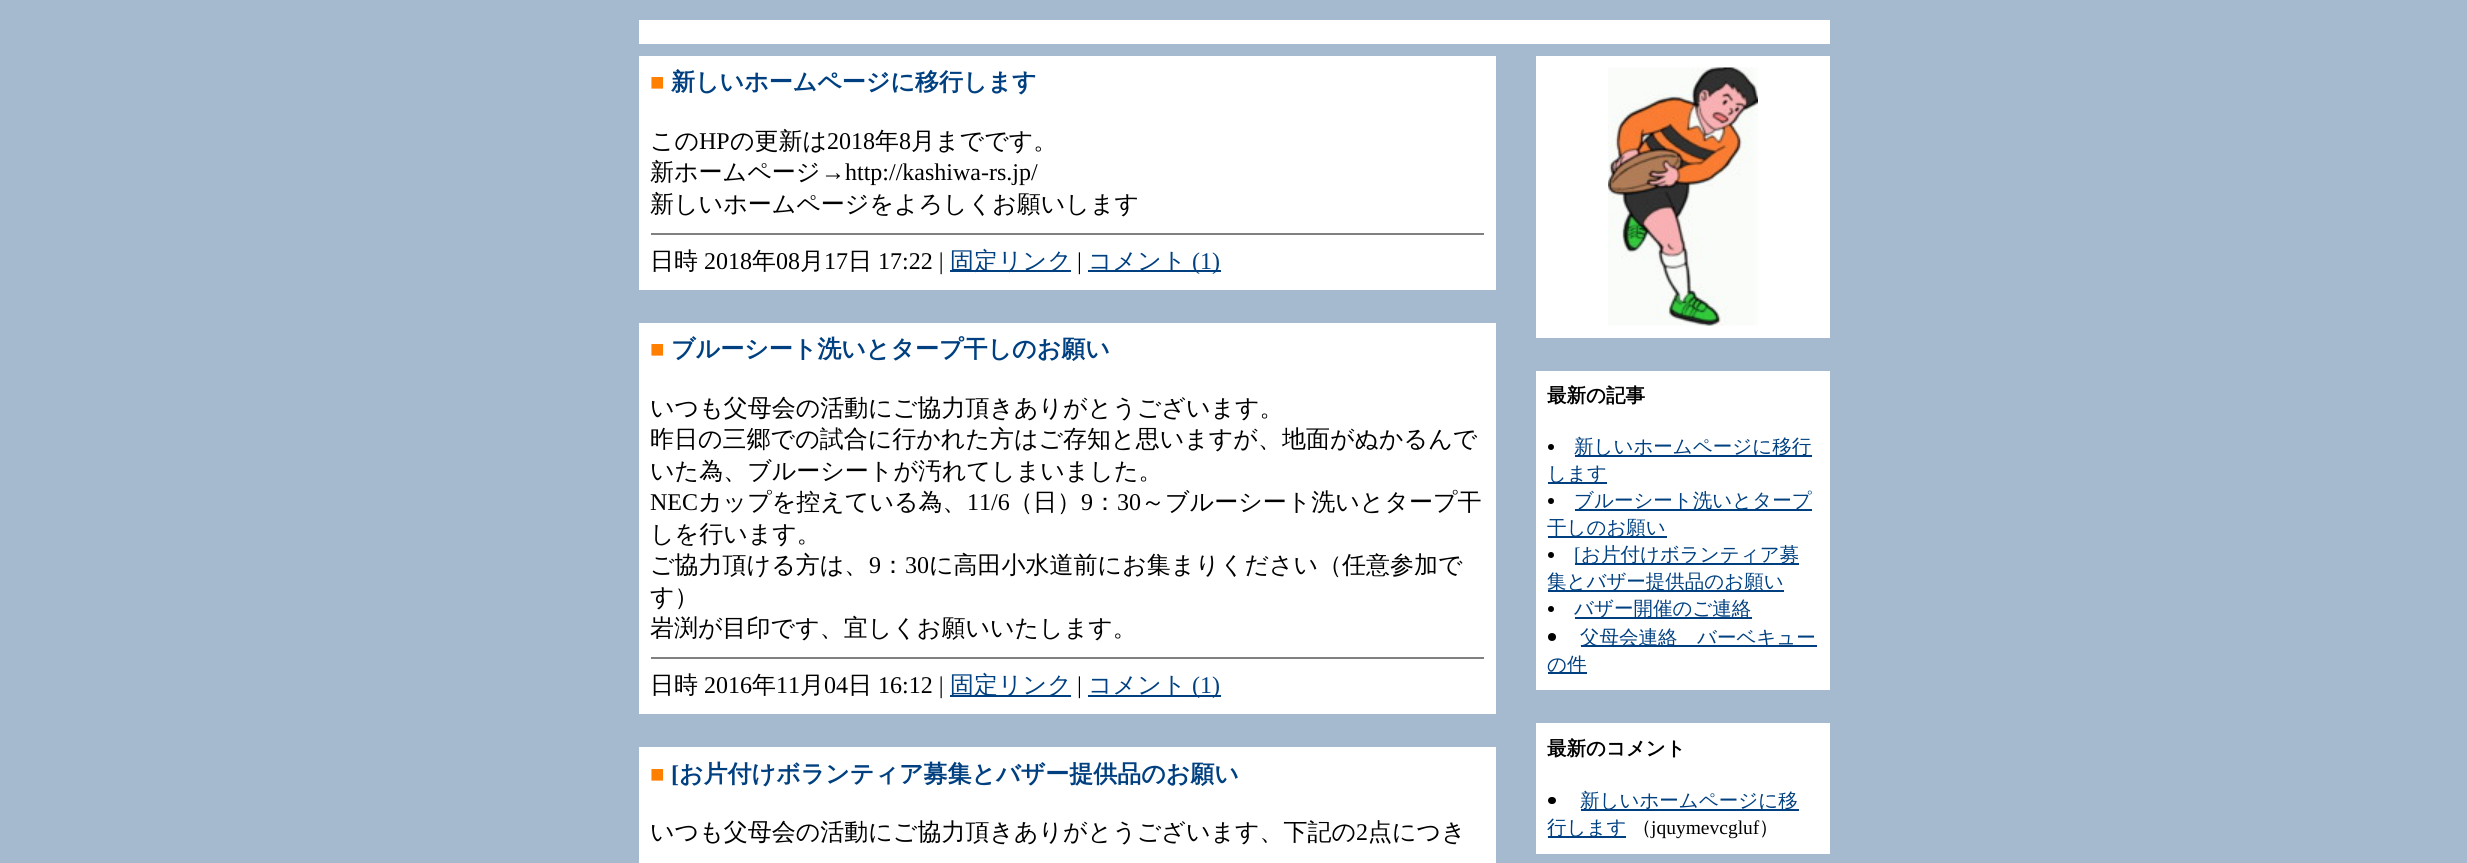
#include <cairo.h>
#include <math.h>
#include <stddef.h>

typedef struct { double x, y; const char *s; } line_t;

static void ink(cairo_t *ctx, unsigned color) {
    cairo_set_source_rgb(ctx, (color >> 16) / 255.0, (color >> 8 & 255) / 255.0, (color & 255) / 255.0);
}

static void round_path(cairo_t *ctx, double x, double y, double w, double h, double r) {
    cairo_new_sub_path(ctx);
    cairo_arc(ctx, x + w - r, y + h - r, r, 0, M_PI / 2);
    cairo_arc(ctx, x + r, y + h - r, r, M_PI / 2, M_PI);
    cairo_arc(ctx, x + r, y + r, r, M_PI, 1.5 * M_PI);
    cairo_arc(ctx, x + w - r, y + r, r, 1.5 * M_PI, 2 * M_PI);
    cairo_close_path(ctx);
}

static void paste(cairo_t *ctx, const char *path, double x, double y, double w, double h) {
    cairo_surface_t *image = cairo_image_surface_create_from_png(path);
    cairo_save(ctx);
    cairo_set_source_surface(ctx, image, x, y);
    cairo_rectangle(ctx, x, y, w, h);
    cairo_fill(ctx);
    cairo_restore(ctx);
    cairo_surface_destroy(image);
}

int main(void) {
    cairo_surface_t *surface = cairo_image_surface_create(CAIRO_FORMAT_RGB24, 2467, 863);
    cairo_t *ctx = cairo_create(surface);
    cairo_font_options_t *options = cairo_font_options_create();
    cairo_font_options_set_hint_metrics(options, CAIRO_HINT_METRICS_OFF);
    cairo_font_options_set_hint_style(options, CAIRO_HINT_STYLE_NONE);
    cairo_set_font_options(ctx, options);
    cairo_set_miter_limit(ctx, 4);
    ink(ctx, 0xA5BACE);
    cairo_paint(ctx);
    ink(ctx, 0xFFFFFF);
    cairo_rectangle(ctx, 639, 20, 1191, 24);
    cairo_fill(ctx);
    cairo_rectangle(ctx, 639, 56, 857, 234);
    cairo_fill(ctx);
    cairo_select_font_face(ctx, "Liberation Serif", CAIRO_FONT_SLANT_NORMAL, CAIRO_FONT_WEIGHT_NORMAL);
    cairo_set_font_size(ctx, 24);
    ink(ctx, 0xFF8000);
    cairo_move_to(ctx, 650, 90);
    cairo_show_text(ctx, "■");
    cairo_select_font_face(ctx, "WenQuanYi Zen Hei", CAIRO_FONT_SLANT_NORMAL, CAIRO_FONT_WEIGHT_BOLD);
    ink(ctx, 0x004080);
    cairo_move_to(ctx, 671, 90);
    cairo_show_text(ctx, "新しいホームページに移行します");
    cairo_select_font_face(ctx, "WenQuanYi Zen Hei Medium", CAIRO_FONT_SLANT_NORMAL, CAIRO_FONT_WEIGHT_NORMAL);
    ink(ctx, 0x000000);
    cairo_move_to(ctx, 650, 149);
    cairo_show_text(ctx, "この");
    cairo_select_font_face(ctx, "Liberation Serif", CAIRO_FONT_SLANT_NORMAL, CAIRO_FONT_WEIGHT_NORMAL);
    cairo_move_to(ctx, 699, 149);
    cairo_show_text(ctx, "HP");
    cairo_select_font_face(ctx, "WenQuanYi Zen Hei Medium", CAIRO_FONT_SLANT_NORMAL, CAIRO_FONT_WEIGHT_NORMAL);
    cairo_move_to(ctx, 730, 149);
    cairo_show_text(ctx, "の更新は");
    cairo_select_font_face(ctx, "Liberation Serif", CAIRO_FONT_SLANT_NORMAL, CAIRO_FONT_WEIGHT_NORMAL);
    cairo_move_to(ctx, 827, 149);
    cairo_show_text(ctx, "2018");
    cairo_select_font_face(ctx, "WenQuanYi Zen Hei Medium", CAIRO_FONT_SLANT_NORMAL, CAIRO_FONT_WEIGHT_NORMAL);
    cairo_move_to(ctx, 875, 149);
    cairo_show_text(ctx, "年");
    cairo_select_font_face(ctx, "Liberation Serif", CAIRO_FONT_SLANT_NORMAL, CAIRO_FONT_WEIGHT_NORMAL);
    cairo_move_to(ctx, 899, 149);
    cairo_show_text(ctx, "8");
    cairo_select_font_face(ctx, "WenQuanYi Zen Hei Medium", CAIRO_FONT_SLANT_NORMAL, CAIRO_FONT_WEIGHT_NORMAL);
    cairo_move_to(ctx, 911, 149);
    cairo_show_text(ctx, "月までです。");
    cairo_move_to(ctx, 650, 180);
    cairo_show_text(ctx, "新ホームページ");
    cairo_select_font_face(ctx, "Liberation Serif", CAIRO_FONT_SLANT_NORMAL, CAIRO_FONT_WEIGHT_NORMAL);
    cairo_move_to(ctx, 821, 180);
    cairo_show_text(ctx, "→http://kashiwa-rs.jp/");
    cairo_select_font_face(ctx, "WenQuanYi Zen Hei Medium", CAIRO_FONT_SLANT_NORMAL, CAIRO_FONT_WEIGHT_NORMAL);
    cairo_move_to(ctx, 650, 212);
    cairo_show_text(ctx, "新しいホームページをよろしくお願いします");
    ink(ctx, 0x808080);
    cairo_rectangle(ctx, 651, 233, 833, 2);
    cairo_fill(ctx);
    ink(ctx, 0x000000);
    cairo_move_to(ctx, 650, 269);
    cairo_show_text(ctx, "日時");
    cairo_select_font_face(ctx, "Liberation Serif", CAIRO_FONT_SLANT_NORMAL, CAIRO_FONT_WEIGHT_NORMAL);
    cairo_move_to(ctx, 704, 269);
    cairo_show_text(ctx, "2018");
    cairo_select_font_face(ctx, "WenQuanYi Zen Hei Medium", CAIRO_FONT_SLANT_NORMAL, CAIRO_FONT_WEIGHT_NORMAL);
    cairo_move_to(ctx, 752, 269);
    cairo_show_text(ctx, "年");
    cairo_select_font_face(ctx, "Liberation Serif", CAIRO_FONT_SLANT_NORMAL, CAIRO_FONT_WEIGHT_NORMAL);
    cairo_move_to(ctx, 776, 269);
    cairo_show_text(ctx, "08");
    cairo_select_font_face(ctx, "WenQuanYi Zen Hei Medium", CAIRO_FONT_SLANT_NORMAL, CAIRO_FONT_WEIGHT_NORMAL);
    cairo_move_to(ctx, 800, 269);
    cairo_show_text(ctx, "月");
    cairo_select_font_face(ctx, "Liberation Serif", CAIRO_FONT_SLANT_NORMAL, CAIRO_FONT_WEIGHT_NORMAL);
    cairo_move_to(ctx, 824, 269);
    cairo_show_text(ctx, "17");
    cairo_select_font_face(ctx, "WenQuanYi Zen Hei Medium", CAIRO_FONT_SLANT_NORMAL, CAIRO_FONT_WEIGHT_NORMAL);
    cairo_move_to(ctx, 848, 269);
    cairo_show_text(ctx, "日");
    cairo_select_font_face(ctx, "Liberation Serif", CAIRO_FONT_SLANT_NORMAL, CAIRO_FONT_WEIGHT_NORMAL);
    cairo_move_to(ctx, 878, 269);
    cairo_show_text(ctx, "17:22 |");
    ink(ctx, 0x004080);
    cairo_rectangle(ctx, 950, 270, 121, 2);
    cairo_fill(ctx);
    cairo_select_font_face(ctx, "WenQuanYi Zen Hei Medium", CAIRO_FONT_SLANT_NORMAL, CAIRO_FONT_WEIGHT_NORMAL);
    cairo_move_to(ctx, 950, 269);
    cairo_show_text(ctx, "固定リンク");
    cairo_select_font_face(ctx, "Liberation Serif", CAIRO_FONT_SLANT_NORMAL, CAIRO_FONT_WEIGHT_NORMAL);
    ink(ctx, 0x000000);
    cairo_move_to(ctx, 1077, 269);
    cairo_show_text(ctx, "|");
    ink(ctx, 0x004080);
    cairo_rectangle(ctx, 1088, 270, 133, 2);
    cairo_fill(ctx);
    cairo_select_font_face(ctx, "WenQuanYi Zen Hei Medium", CAIRO_FONT_SLANT_NORMAL, CAIRO_FONT_WEIGHT_NORMAL);
    cairo_move_to(ctx, 1088, 269);
    cairo_show_text(ctx, "コメント");
    cairo_select_font_face(ctx, "Liberation Serif", CAIRO_FONT_SLANT_NORMAL, CAIRO_FONT_WEIGHT_NORMAL);
    cairo_move_to(ctx, 1192, 269);
    cairo_show_text(ctx, "(1)");
    ink(ctx, 0xFFFFFF);
    cairo_rectangle(ctx, 639, 323, 857, 391);
    cairo_fill(ctx);
    ink(ctx, 0xFF8000);
    cairo_move_to(ctx, 650, 357);
    cairo_show_text(ctx, "■");
    cairo_select_font_face(ctx, "WenQuanYi Zen Hei", CAIRO_FONT_SLANT_NORMAL, CAIRO_FONT_WEIGHT_BOLD);
    ink(ctx, 0x004080);
    cairo_move_to(ctx, 671, 357);
    cairo_show_text(ctx, "ブルーシート洗いとタープ干しのお願い");
    cairo_select_font_face(ctx, "WenQuanYi Zen Hei Medium", CAIRO_FONT_SLANT_NORMAL, CAIRO_FONT_WEIGHT_NORMAL);
    ink(ctx, 0x000000);
    {
        static const line_t items[] = {
            {650, 416, "いつも父母会の活動にご協力頂きありがとうございます。"},
            {650, 447, "昨日の三郷での試合に行かれた方はご存知と思いますが、地面がぬかるんで"},
            {650, 479, "いた為、ブルーシートが汚れてしまいました。"},
        };
        for (size_t i = 0; i < sizeof items / sizeof *items; i++) {
            cairo_move_to(ctx, items[i].x, items[i].y);
            cairo_show_text(ctx, items[i].s);
        }
    }
    cairo_select_font_face(ctx, "Liberation Serif", CAIRO_FONT_SLANT_NORMAL, CAIRO_FONT_WEIGHT_NORMAL);
    cairo_move_to(ctx, 650, 510);
    cairo_show_text(ctx, "NEC");
    cairo_select_font_face(ctx, "WenQuanYi Zen Hei Medium", CAIRO_FONT_SLANT_NORMAL, CAIRO_FONT_WEIGHT_NORMAL);
    cairo_move_to(ctx, 698, 510);
    cairo_show_text(ctx, "カップを控えている為、");
    cairo_select_font_face(ctx, "Liberation Serif", CAIRO_FONT_SLANT_NORMAL, CAIRO_FONT_WEIGHT_NORMAL);
    cairo_move_to(ctx, 967, 510);
    cairo_show_text(ctx, "11/6");
    cairo_select_font_face(ctx, "WenQuanYi Zen Hei Medium", CAIRO_FONT_SLANT_NORMAL, CAIRO_FONT_WEIGHT_NORMAL);
    cairo_move_to(ctx, 1009, 510);
    cairo_show_text(ctx, "（日）");
    cairo_select_font_face(ctx, "Liberation Serif", CAIRO_FONT_SLANT_NORMAL, CAIRO_FONT_WEIGHT_NORMAL);
    cairo_move_to(ctx, 1081, 510);
    cairo_show_text(ctx, "9");
    cairo_select_font_face(ctx, "WenQuanYi Zen Hei Medium", CAIRO_FONT_SLANT_NORMAL, CAIRO_FONT_WEIGHT_NORMAL);
    cairo_move_to(ctx, 1093, 510);
    cairo_show_text(ctx, "：");
    cairo_select_font_face(ctx, "Liberation Serif", CAIRO_FONT_SLANT_NORMAL, CAIRO_FONT_WEIGHT_NORMAL);
    cairo_move_to(ctx, 1117, 510);
    cairo_show_text(ctx, "30");
    cairo_select_font_face(ctx, "WenQuanYi Zen Hei Medium", CAIRO_FONT_SLANT_NORMAL, CAIRO_FONT_WEIGHT_NORMAL);
    {
        static const line_t items[] = {
            {1141, 510, "～ブルーシート洗いとタープ干"},
            {650, 542, "しを行います。"},
            {650, 573, "ご協力頂ける方は、"},
        };
        for (size_t i = 0; i < sizeof items / sizeof *items; i++) {
            cairo_move_to(ctx, items[i].x, items[i].y);
            cairo_show_text(ctx, items[i].s);
        }
    }
    cairo_select_font_face(ctx, "Liberation Serif", CAIRO_FONT_SLANT_NORMAL, CAIRO_FONT_WEIGHT_NORMAL);
    cairo_move_to(ctx, 869, 573);
    cairo_show_text(ctx, "9");
    cairo_select_font_face(ctx, "WenQuanYi Zen Hei Medium", CAIRO_FONT_SLANT_NORMAL, CAIRO_FONT_WEIGHT_NORMAL);
    cairo_move_to(ctx, 881, 573);
    cairo_show_text(ctx, "：");
    cairo_select_font_face(ctx, "Liberation Serif", CAIRO_FONT_SLANT_NORMAL, CAIRO_FONT_WEIGHT_NORMAL);
    cairo_move_to(ctx, 905, 573);
    cairo_show_text(ctx, "30");
    cairo_select_font_face(ctx, "WenQuanYi Zen Hei Medium", CAIRO_FONT_SLANT_NORMAL, CAIRO_FONT_WEIGHT_NORMAL);
    {
        static const line_t items[] = {
            {929, 573, "に高田小水道前にお集まりください（任意参加で"},
            {650, 605, "す）"},
            {650, 636, "岩渕が目印です、宜しくお願いいたします。"},
        };
        for (size_t i = 0; i < sizeof items / sizeof *items; i++) {
            cairo_move_to(ctx, items[i].x, items[i].y);
            cairo_show_text(ctx, items[i].s);
        }
    }
    ink(ctx, 0x808080);
    cairo_rectangle(ctx, 651, 657, 833, 2);
    cairo_fill(ctx);
    ink(ctx, 0x000000);
    cairo_move_to(ctx, 650, 693);
    cairo_show_text(ctx, "日時");
    cairo_select_font_face(ctx, "Liberation Serif", CAIRO_FONT_SLANT_NORMAL, CAIRO_FONT_WEIGHT_NORMAL);
    cairo_move_to(ctx, 704, 693);
    cairo_show_text(ctx, "2016");
    cairo_select_font_face(ctx, "WenQuanYi Zen Hei Medium", CAIRO_FONT_SLANT_NORMAL, CAIRO_FONT_WEIGHT_NORMAL);
    cairo_move_to(ctx, 752, 693);
    cairo_show_text(ctx, "年");
    cairo_select_font_face(ctx, "Liberation Serif", CAIRO_FONT_SLANT_NORMAL, CAIRO_FONT_WEIGHT_NORMAL);
    cairo_move_to(ctx, 776, 693);
    cairo_show_text(ctx, "11");
    cairo_select_font_face(ctx, "WenQuanYi Zen Hei Medium", CAIRO_FONT_SLANT_NORMAL, CAIRO_FONT_WEIGHT_NORMAL);
    cairo_move_to(ctx, 800, 693);
    cairo_show_text(ctx, "月");
    cairo_select_font_face(ctx, "Liberation Serif", CAIRO_FONT_SLANT_NORMAL, CAIRO_FONT_WEIGHT_NORMAL);
    cairo_move_to(ctx, 824, 693);
    cairo_show_text(ctx, "04");
    cairo_select_font_face(ctx, "WenQuanYi Zen Hei Medium", CAIRO_FONT_SLANT_NORMAL, CAIRO_FONT_WEIGHT_NORMAL);
    cairo_move_to(ctx, 848, 693);
    cairo_show_text(ctx, "日");
    cairo_select_font_face(ctx, "Liberation Serif", CAIRO_FONT_SLANT_NORMAL, CAIRO_FONT_WEIGHT_NORMAL);
    cairo_move_to(ctx, 878, 693);
    cairo_show_text(ctx, "16:12 |");
    ink(ctx, 0x004080);
    cairo_rectangle(ctx, 950, 695, 121, 2);
    cairo_fill(ctx);
    cairo_select_font_face(ctx, "WenQuanYi Zen Hei Medium", CAIRO_FONT_SLANT_NORMAL, CAIRO_FONT_WEIGHT_NORMAL);
    cairo_move_to(ctx, 950, 693);
    cairo_show_text(ctx, "固定リンク");
    cairo_select_font_face(ctx, "Liberation Serif", CAIRO_FONT_SLANT_NORMAL, CAIRO_FONT_WEIGHT_NORMAL);
    ink(ctx, 0x000000);
    cairo_move_to(ctx, 1077, 693);
    cairo_show_text(ctx, "|");
    ink(ctx, 0x004080);
    cairo_rectangle(ctx, 1088, 695, 133, 2);
    cairo_fill(ctx);
    cairo_select_font_face(ctx, "WenQuanYi Zen Hei Medium", CAIRO_FONT_SLANT_NORMAL, CAIRO_FONT_WEIGHT_NORMAL);
    cairo_move_to(ctx, 1088, 693);
    cairo_show_text(ctx, "コメント");
    cairo_select_font_face(ctx, "Liberation Serif", CAIRO_FONT_SLANT_NORMAL, CAIRO_FONT_WEIGHT_NORMAL);
    cairo_move_to(ctx, 1192, 693);
    cairo_show_text(ctx, "(1)");
    ink(ctx, 0xFFFFFF);
    cairo_rectangle(ctx, 639, 747, 857, 116);
    cairo_fill(ctx);
    ink(ctx, 0xFF8000);
    cairo_move_to(ctx, 650, 782);
    cairo_show_text(ctx, "■");
    cairo_select_font_face(ctx, "Liberation Serif", CAIRO_FONT_SLANT_NORMAL, CAIRO_FONT_WEIGHT_BOLD);
    ink(ctx, 0x004080);
    cairo_move_to(ctx, 671, 782);
    cairo_show_text(ctx, "[");
    cairo_select_font_face(ctx, "WenQuanYi Zen Hei", CAIRO_FONT_SLANT_NORMAL, CAIRO_FONT_WEIGHT_BOLD);
    cairo_move_to(ctx, 679, 782);
    cairo_show_text(ctx, "お片付けボランティア募集とバザー提供品のお願い");
    cairo_select_font_face(ctx, "WenQuanYi Zen Hei Medium", CAIRO_FONT_SLANT_NORMAL, CAIRO_FONT_WEIGHT_NORMAL);
    ink(ctx, 0x000000);
    cairo_move_to(ctx, 650, 840);
    cairo_show_text(ctx, "いつも父母会の活動にご協力頂きありがとうございます、下記の");
    cairo_select_font_face(ctx, "Liberation Serif", CAIRO_FONT_SLANT_NORMAL, CAIRO_FONT_WEIGHT_NORMAL);
    cairo_move_to(ctx, 1356, 840);
    cairo_show_text(ctx, "2");
    cairo_select_font_face(ctx, "WenQuanYi Zen Hei Medium", CAIRO_FONT_SLANT_NORMAL, CAIRO_FONT_WEIGHT_NORMAL);
    cairo_move_to(ctx, 1368, 840);
    cairo_show_text(ctx, "点につき");
    ink(ctx, 0xFFFFFF);
    cairo_rectangle(ctx, 1536, 56, 294, 282);
    cairo_fill(ctx);
    paste(ctx, "media/1.png", 1608, 67, 150, 259);
    cairo_rectangle(ctx, 1536, 371, 294, 319);
    cairo_fill(ctx);
    cairo_select_font_face(ctx, "WenQuanYi Zen Hei", CAIRO_FONT_SLANT_NORMAL, CAIRO_FONT_WEIGHT_BOLD);
    cairo_set_font_size(ctx, 19.5);
    ink(ctx, 0x000000);
    cairo_move_to(ctx, 1547, 402);
    cairo_show_text(ctx, "最新の記事");
    cairo_new_path(ctx);
    cairo_arc(ctx, 1551, 447, 3, 0, 2 * M_PI);
    cairo_fill(ctx);
    ink(ctx, 0x004080);
    cairo_rectangle(ctx, 1575, 455, 237, 2);
    cairo_fill(ctx);
    cairo_select_font_face(ctx, "WenQuanYi Zen Hei Medium", CAIRO_FONT_SLANT_NORMAL, CAIRO_FONT_WEIGHT_NORMAL);
    cairo_move_to(ctx, 1574, 453);
    cairo_show_text(ctx, "新しいホームページに移行");
    cairo_rectangle(ctx, 1548, 482, 59, 2);
    cairo_fill(ctx);
    cairo_move_to(ctx, 1547, 480);
    cairo_show_text(ctx, "します");
    ink(ctx, 0x000000);
    cairo_new_path(ctx);
    cairo_arc(ctx, 1551, 501, 3, 0, 2 * M_PI);
    cairo_fill(ctx);
    ink(ctx, 0x004080);
    cairo_rectangle(ctx, 1575, 509, 237, 2);
    cairo_fill(ctx);
    cairo_move_to(ctx, 1574, 507);
    cairo_show_text(ctx, "ブルーシート洗いとタープ");
    cairo_rectangle(ctx, 1548, 536, 119, 2);
    cairo_fill(ctx);
    cairo_move_to(ctx, 1547, 534);
    cairo_show_text(ctx, "干しのお願い");
    ink(ctx, 0x000000);
    cairo_new_path(ctx);
    cairo_arc(ctx, 1551, 555, 3, 0, 2 * M_PI);
    cairo_fill(ctx);
    ink(ctx, 0x004080);
    cairo_rectangle(ctx, 1575, 563, 224, 2);
    cairo_fill(ctx);
    cairo_select_font_face(ctx, "Liberation Serif", CAIRO_FONT_SLANT_NORMAL, CAIRO_FONT_WEIGHT_NORMAL);
    cairo_move_to(ctx, 1574, 561);
    cairo_show_text(ctx, "[");
    cairo_select_font_face(ctx, "WenQuanYi Zen Hei Medium", CAIRO_FONT_SLANT_NORMAL, CAIRO_FONT_WEIGHT_NORMAL);
    cairo_move_to(ctx, 1581, 561);
    cairo_show_text(ctx, "お片付けボランティア募");
    cairo_rectangle(ctx, 1548, 590, 236, 2);
    cairo_fill(ctx);
    cairo_move_to(ctx, 1547, 588);
    cairo_show_text(ctx, "集とバザー提供品のお願い");
    ink(ctx, 0x000000);
    cairo_new_path(ctx);
    cairo_arc(ctx, 1551, 609, 3, 0, 2 * M_PI);
    cairo_fill(ctx);
    ink(ctx, 0x004080);
    cairo_rectangle(ctx, 1575, 617, 177, 2);
    cairo_fill(ctx);
    cairo_move_to(ctx, 1574, 615);
    cairo_show_text(ctx, "バザー開催のご連絡");
    ink(ctx, 0x000000);
    cairo_new_path(ctx);
    cairo_arc(ctx, 1552, 637, 4, 0, 2 * M_PI);
    cairo_fill(ctx);
    ink(ctx, 0x004080);
    cairo_rectangle(ctx, 1581, 645, 236, 2);
    cairo_fill(ctx);
    cairo_move_to(ctx, 1580, 644);
    cairo_show_text(ctx, "父母会連絡　バーベキュー");
    cairo_rectangle(ctx, 1548, 672, 39, 2);
    cairo_fill(ctx);
    cairo_move_to(ctx, 1547, 671);
    cairo_show_text(ctx, "の件");
    ink(ctx, 0xFFFFFF);
    cairo_rectangle(ctx, 1536, 723, 294, 131);
    cairo_fill(ctx);
    cairo_select_font_face(ctx, "WenQuanYi Zen Hei", CAIRO_FONT_SLANT_NORMAL, CAIRO_FONT_WEIGHT_BOLD);
    ink(ctx, 0x000000);
    cairo_move_to(ctx, 1547, 755);
    cairo_show_text(ctx, "最新のコメント");
    round_path(ctx, 1548, 797, 8, 7, 3.5);
    cairo_fill(ctx);
    ink(ctx, 0x004080);
    cairo_rectangle(ctx, 1581, 809, 218, 2);
    cairo_fill(ctx);
    cairo_select_font_face(ctx, "WenQuanYi Zen Hei Medium", CAIRO_FONT_SLANT_NORMAL, CAIRO_FONT_WEIGHT_NORMAL);
    cairo_move_to(ctx, 1580, 807);
    cairo_show_text(ctx, "新しいホームページに移");
    cairo_rectangle(ctx, 1548, 836, 78, 2);
    cairo_fill(ctx);
    cairo_move_to(ctx, 1547, 834);
    cairo_show_text(ctx, "行します");
    ink(ctx, 0x000000);
    cairo_move_to(ctx, 1632, 834);
    cairo_show_text(ctx, "（");
    cairo_select_font_face(ctx, "Liberation Serif", CAIRO_FONT_SLANT_NORMAL, CAIRO_FONT_WEIGHT_NORMAL);
    cairo_move_to(ctx, 1651, 834);
    cairo_show_text(ctx, "jquymevcgluf");
    cairo_select_font_face(ctx, "WenQuanYi Zen Hei Medium", CAIRO_FONT_SLANT_NORMAL, CAIRO_FONT_WEIGHT_NORMAL);
    cairo_move_to(ctx, 1759, 834);
    cairo_show_text(ctx, "）");
    cairo_surface_write_to_png(surface, "image.png");
    cairo_font_options_destroy(options);
    cairo_destroy(ctx);
    cairo_surface_destroy(surface);
    return 0;
}
